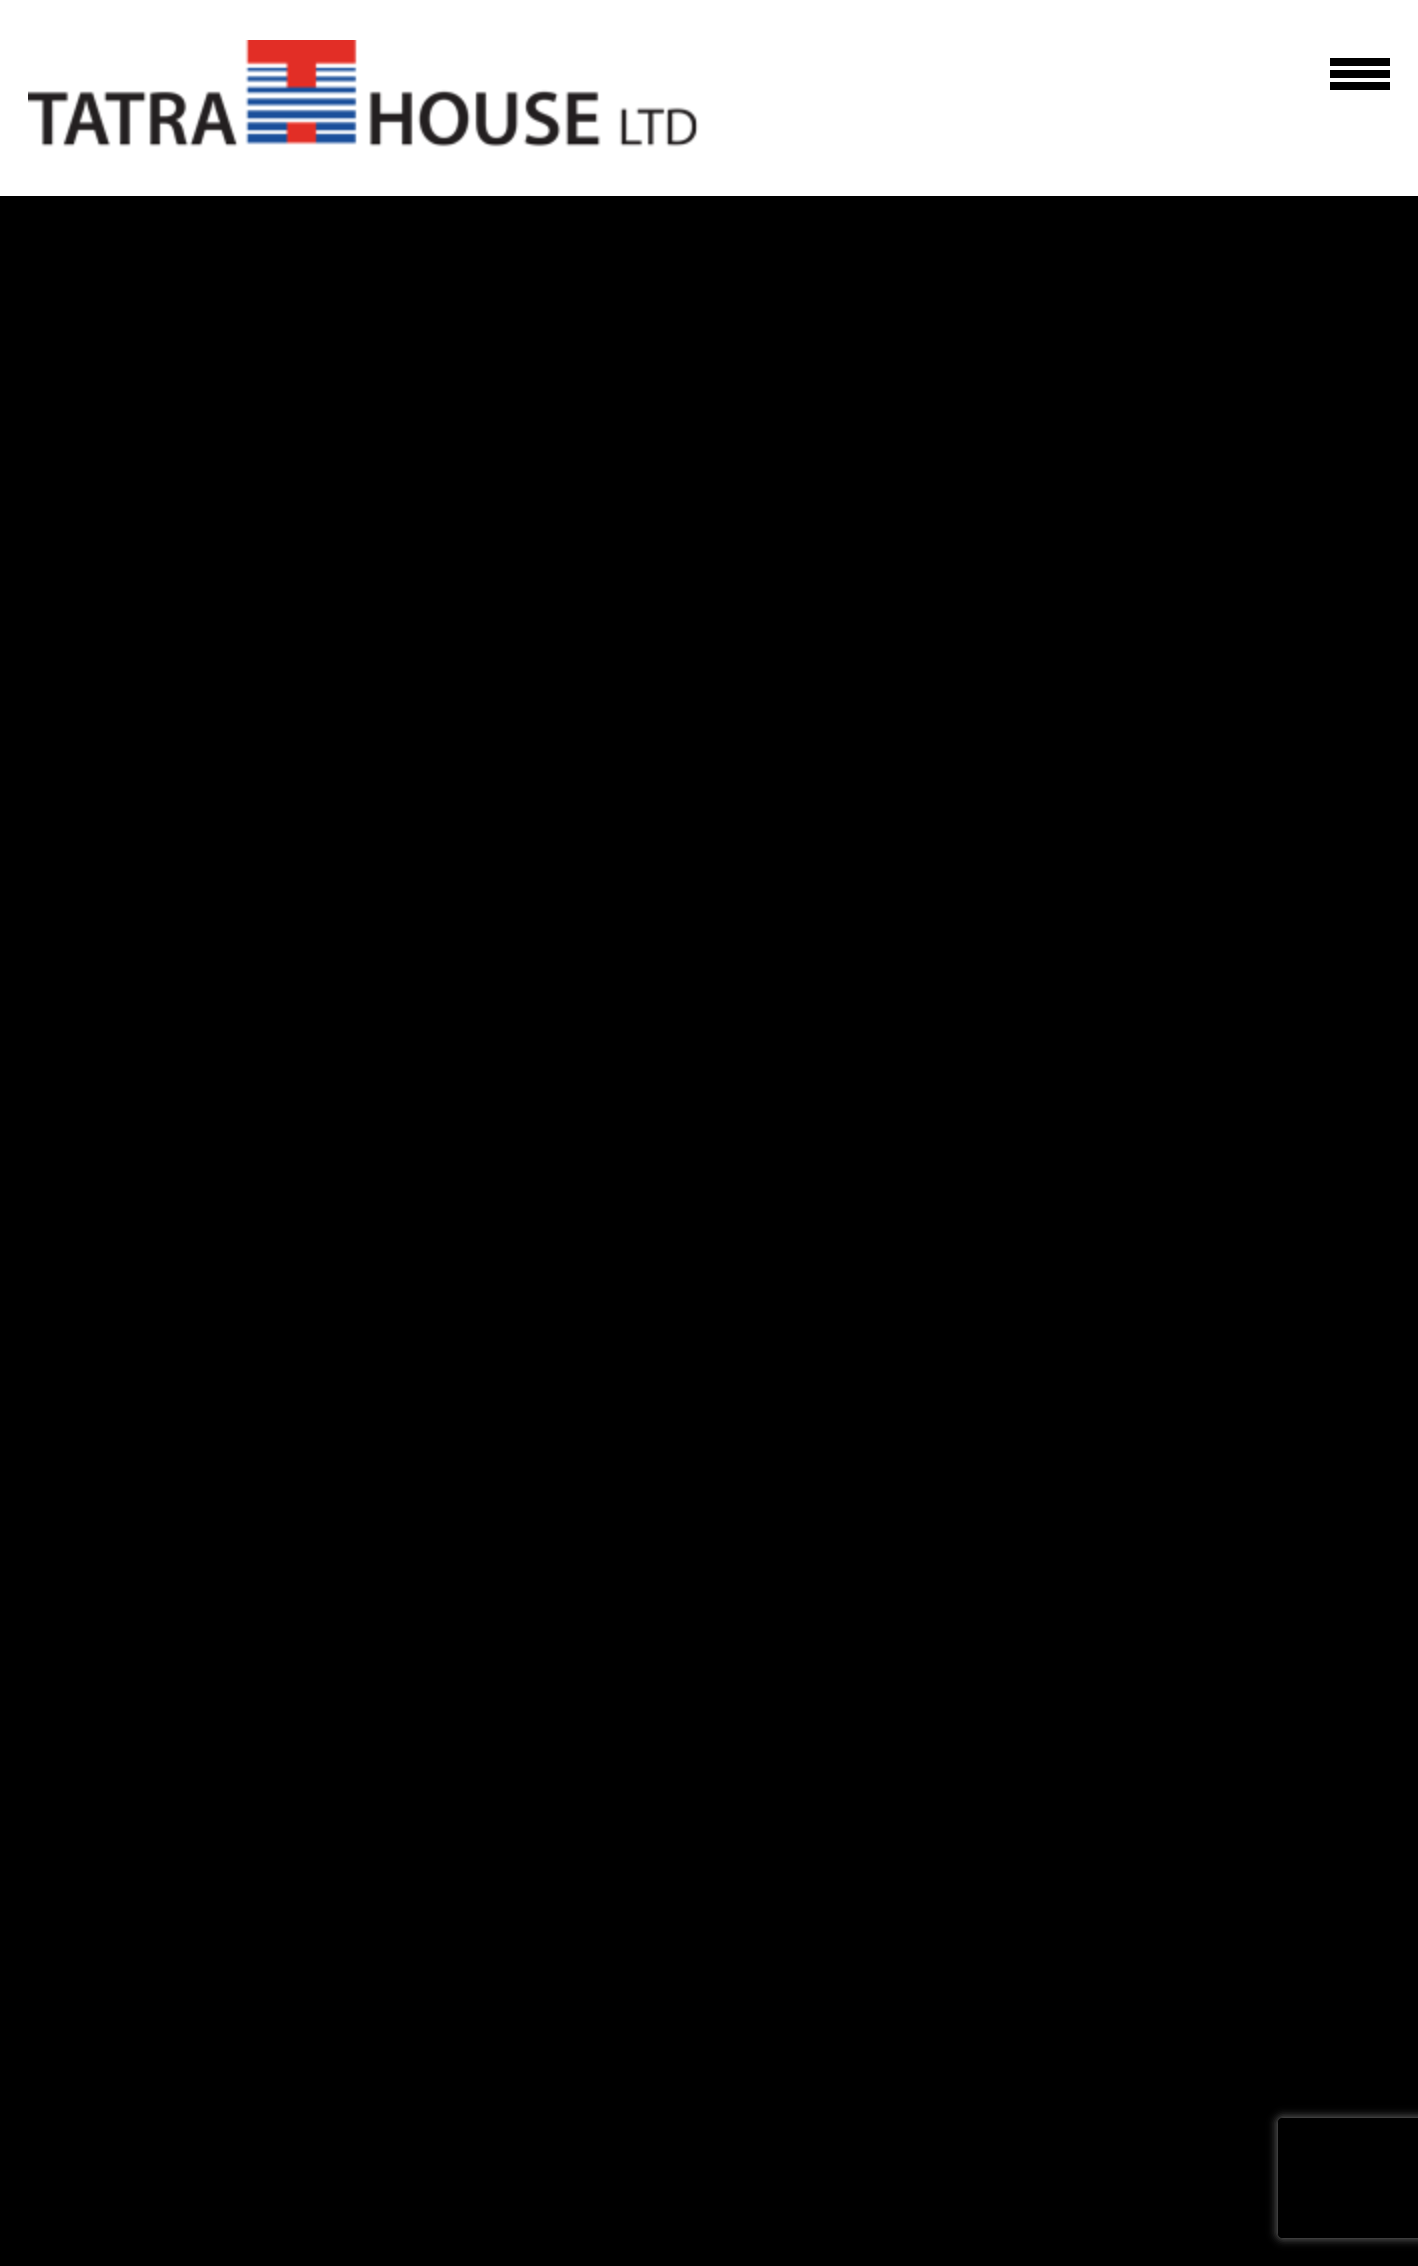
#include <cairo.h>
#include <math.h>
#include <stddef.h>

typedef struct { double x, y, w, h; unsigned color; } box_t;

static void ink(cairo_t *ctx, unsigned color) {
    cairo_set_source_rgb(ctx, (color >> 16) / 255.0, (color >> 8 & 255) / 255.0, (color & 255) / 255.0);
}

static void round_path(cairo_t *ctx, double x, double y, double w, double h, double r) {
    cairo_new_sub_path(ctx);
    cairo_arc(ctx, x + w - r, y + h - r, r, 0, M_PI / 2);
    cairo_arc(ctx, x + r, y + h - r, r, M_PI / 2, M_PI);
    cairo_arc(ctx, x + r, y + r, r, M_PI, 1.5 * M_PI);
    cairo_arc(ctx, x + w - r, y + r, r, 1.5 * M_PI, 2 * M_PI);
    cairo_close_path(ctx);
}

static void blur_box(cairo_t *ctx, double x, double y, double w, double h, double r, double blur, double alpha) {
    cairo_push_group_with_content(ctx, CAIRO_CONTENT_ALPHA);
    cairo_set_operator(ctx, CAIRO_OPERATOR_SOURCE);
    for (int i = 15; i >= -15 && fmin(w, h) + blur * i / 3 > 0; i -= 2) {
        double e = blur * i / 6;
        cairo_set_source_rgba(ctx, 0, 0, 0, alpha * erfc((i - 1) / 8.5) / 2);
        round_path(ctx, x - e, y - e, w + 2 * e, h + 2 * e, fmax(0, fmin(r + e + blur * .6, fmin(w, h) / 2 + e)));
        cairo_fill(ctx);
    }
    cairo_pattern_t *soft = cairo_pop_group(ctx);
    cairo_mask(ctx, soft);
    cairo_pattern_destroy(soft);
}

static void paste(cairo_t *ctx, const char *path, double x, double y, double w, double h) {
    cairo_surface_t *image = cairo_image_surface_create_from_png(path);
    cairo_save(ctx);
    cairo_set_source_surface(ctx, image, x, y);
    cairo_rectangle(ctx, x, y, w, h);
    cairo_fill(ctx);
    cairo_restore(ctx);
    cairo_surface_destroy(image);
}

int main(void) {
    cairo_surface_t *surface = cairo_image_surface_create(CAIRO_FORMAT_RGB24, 1418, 2266);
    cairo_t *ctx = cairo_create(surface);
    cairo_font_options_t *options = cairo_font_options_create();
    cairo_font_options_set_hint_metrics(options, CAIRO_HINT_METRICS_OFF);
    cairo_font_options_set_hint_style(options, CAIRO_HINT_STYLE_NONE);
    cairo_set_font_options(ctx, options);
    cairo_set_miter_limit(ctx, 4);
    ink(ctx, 0x000000);
    cairo_paint(ctx);
    ink(ctx, 0xFFFFFF);
    cairo_rectangle(ctx, 0, 0, 1418, 196);
    cairo_fill(ctx);
    paste(ctx, "media/1.png", 28, 40, 671, 107);
    {
        static const box_t items[] = {
            {1330, 58, 60, 8, 0x000000},
            {1330, 70, 60, 8, 0x000000},
            {1330, 82, 60, 8, 0x000000},
        };
        for (size_t i = 0; i < sizeof items / sizeof *items; i++) {
            ink(ctx, items[i].color);
            cairo_rectangle(ctx, items[i].x, items[i].y, items[i].w, items[i].h);
            cairo_fill(ctx);
        }
    }
    cairo_save(ctx);
    cairo_set_fill_rule(ctx, CAIRO_FILL_RULE_EVEN_ODD);
    cairo_new_path(ctx);
    cairo_move_to(ctx, 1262, 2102);
    cairo_line_to(ctx, 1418, 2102);
    cairo_line_to(ctx, 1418, 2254);
    cairo_line_to(ctx, 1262, 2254);
    cairo_close_path(ctx);
    cairo_move_to(ctx, 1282, 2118);
    cairo_line_to(ctx, 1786, 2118);
    cairo_curve_to(ctx, 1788, 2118, 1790, 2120, 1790, 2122);
    cairo_line_to(ctx, 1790, 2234);
    cairo_curve_to(ctx, 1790, 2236, 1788, 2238, 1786, 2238);
    cairo_line_to(ctx, 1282, 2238);
    cairo_curve_to(ctx, 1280, 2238, 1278, 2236, 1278, 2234);
    cairo_line_to(ctx, 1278, 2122);
    cairo_curve_to(ctx, 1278, 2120, 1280, 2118, 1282, 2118);
    cairo_close_path(ctx);
    cairo_clip(ctx);
    ink(ctx, 0x808080);
    blur_box(ctx, 1278, 2118, 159, 120, 4, 5, 1);
    cairo_restore(ctx);
    cairo_surface_write_to_png(surface, "image.png");
    cairo_font_options_destroy(options);
    cairo_destroy(ctx);
    cairo_surface_destroy(surface);
    return 0;
}
